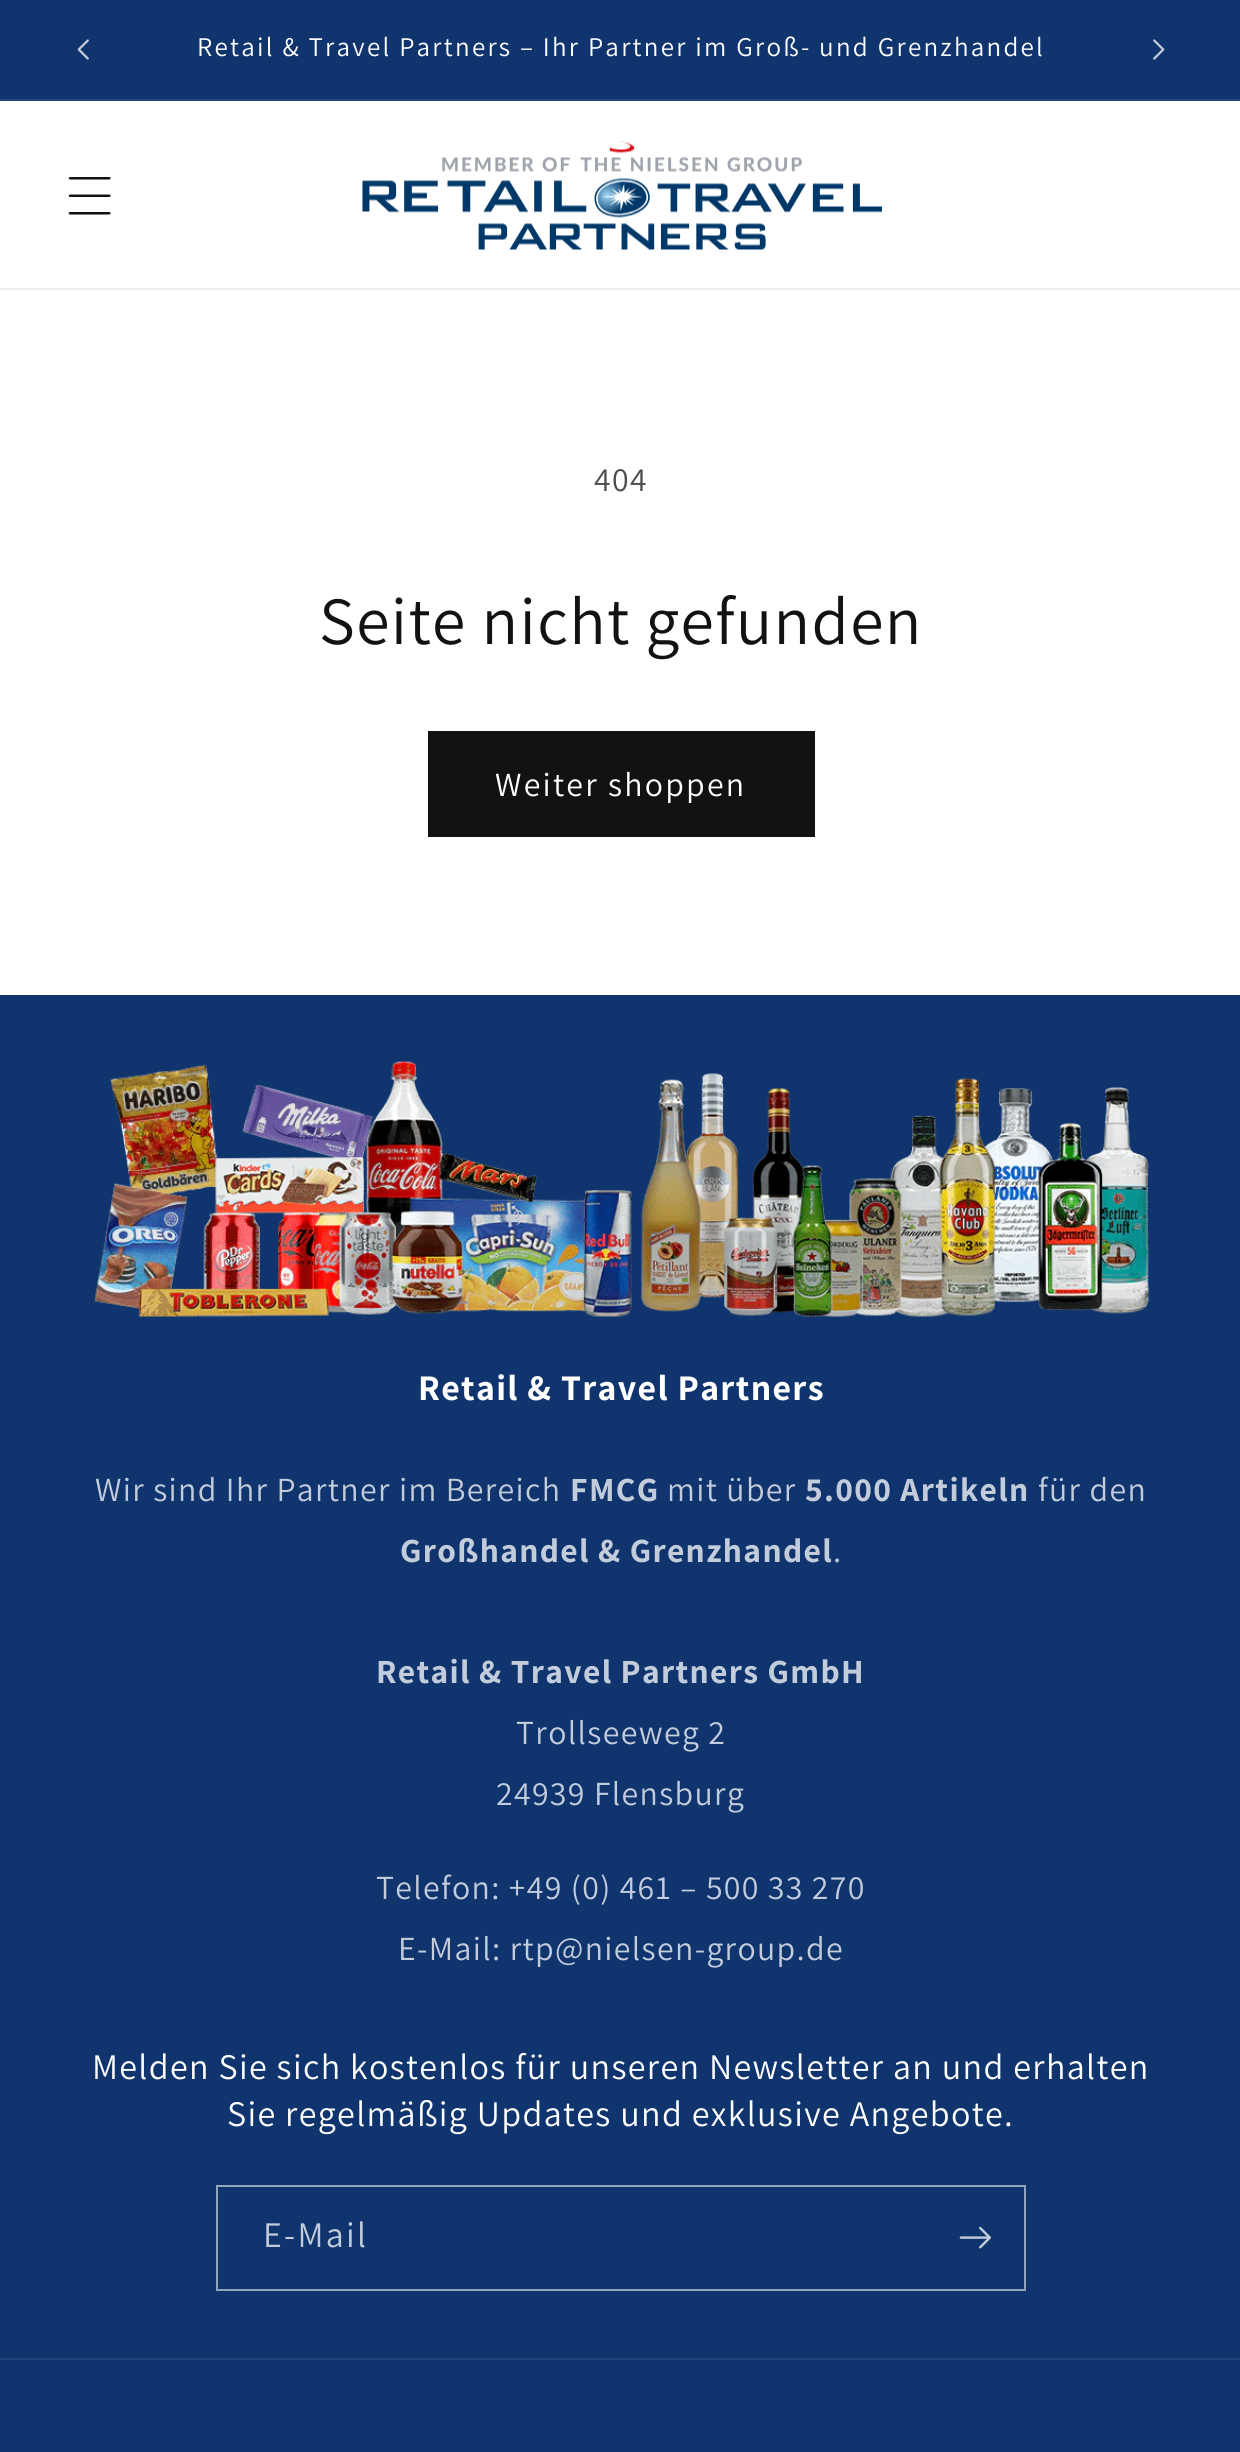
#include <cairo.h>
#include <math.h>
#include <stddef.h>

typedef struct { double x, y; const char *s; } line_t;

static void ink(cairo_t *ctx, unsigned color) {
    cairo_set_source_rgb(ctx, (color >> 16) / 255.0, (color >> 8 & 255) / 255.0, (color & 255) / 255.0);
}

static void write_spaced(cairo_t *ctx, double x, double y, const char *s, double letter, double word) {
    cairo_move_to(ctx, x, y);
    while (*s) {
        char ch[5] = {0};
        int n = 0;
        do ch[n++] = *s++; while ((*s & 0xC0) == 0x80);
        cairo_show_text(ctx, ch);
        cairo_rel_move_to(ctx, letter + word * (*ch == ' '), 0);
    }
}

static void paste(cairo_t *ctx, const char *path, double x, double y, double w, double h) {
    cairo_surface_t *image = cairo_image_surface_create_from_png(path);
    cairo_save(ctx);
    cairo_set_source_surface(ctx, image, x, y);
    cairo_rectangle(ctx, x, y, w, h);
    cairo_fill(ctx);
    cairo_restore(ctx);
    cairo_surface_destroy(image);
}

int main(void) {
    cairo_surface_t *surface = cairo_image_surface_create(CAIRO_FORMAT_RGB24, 1240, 2452);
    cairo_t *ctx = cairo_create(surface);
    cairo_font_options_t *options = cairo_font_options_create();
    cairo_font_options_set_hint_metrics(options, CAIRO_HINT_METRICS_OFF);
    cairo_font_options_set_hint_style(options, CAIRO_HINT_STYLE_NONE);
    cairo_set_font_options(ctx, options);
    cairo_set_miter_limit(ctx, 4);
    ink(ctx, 0xFFFFFF);
    cairo_paint(ctx);
    ink(ctx, 0x0F346E);
    cairo_rectangle(ctx, 0, 0, 1240, 99);
    cairo_fill(ctx);
    ink(ctx, 0x22447A);
    cairo_rectangle(ctx, 0, 99, 1240, 2);
    cairo_fill(ctx);
    paste(ctx, "media/1.png", 77, 39, 12, 21);
    cairo_select_font_face(ctx, "Assistant", CAIRO_FONT_SLANT_NORMAL, CAIRO_FONT_WEIGHT_NORMAL);
    cairo_set_font_size(ctx, 27);
    ink(ctx, 0xFFFFFF);
    write_spaced(ctx, 197, 56, "Retail & Travel Partners – Ihr Partner im Groß- und Grenzhandel", 2.25, 0);
    paste(ctx, "media/2.png", 1153, 39, 12, 21);
    ink(ctx, 0xECECEC);
    cairo_rectangle(ctx, 0, 288, 1240, 2);
    cairo_fill(ctx);
    paste(ctx, "media/3.png", 68, 177, 43, 38);
    paste(ctx, "media/4.png", 362, 141, 520, 109);
    cairo_set_font_size(ctx, 33.75);
    ink(ctx, 0x4D4D4D);
    write_spaced(ctx, 594, 491, "404", 1.35, 0);
    cairo_set_font_size(ctx, 67.5);
    ink(ctx, 0x121212);
    write_spaced(ctx, 319, 644, "Seite nicht gefunden", 1.35, 0);
    cairo_rectangle(ctx, 428, 731, 387, 106);
    cairo_fill(ctx);
    cairo_set_font_size(ctx, 33.75);
    ink(ctx, 0xFFFFFF);
    write_spaced(ctx, 495, 796, "Weiter shoppen", 2.25, 0);
    ink(ctx, 0x0F346E);
    cairo_rectangle(ctx, 0, 995, 1240, 1457);
    cairo_fill(ctx);
    paste(ctx, "media/5.png", 94, 1061, 1056, 257);
    cairo_select_font_face(ctx, "Assistant", CAIRO_FONT_SLANT_NORMAL, CAIRO_FONT_WEIGHT_BOLD);
    cairo_set_font_size(ctx, 36);
    ink(ctx, 0xFFFFFF);
    write_spaced(ctx, 418, 1400, "Retail & Travel Partners", 1.35, 0);
    cairo_select_font_face(ctx, "Assistant", CAIRO_FONT_SLANT_NORMAL, CAIRO_FONT_WEIGHT_NORMAL);
    cairo_set_font_size(ctx, 33.75);
    ink(ctx, 0xC3CCDB);
    write_spaced(ctx, 95, 1501, "Wir sind Ihr Partner im Bereich", 1.35, 0);
    cairo_select_font_face(ctx, "Assistant", CAIRO_FONT_SLANT_NORMAL, CAIRO_FONT_WEIGHT_BOLD);
    write_spaced(ctx, 570, 1501, "FMCG", 1.35, 0);
    cairo_select_font_face(ctx, "Assistant", CAIRO_FONT_SLANT_NORMAL, CAIRO_FONT_WEIGHT_NORMAL);
    write_spaced(ctx, 667, 1501, "mit über", 1.35, 0);
    cairo_select_font_face(ctx, "Assistant", CAIRO_FONT_SLANT_NORMAL, CAIRO_FONT_WEIGHT_BOLD);
    write_spaced(ctx, 805, 1501, "5.000 Artikeln", 1.35, 0);
    cairo_select_font_face(ctx, "Assistant", CAIRO_FONT_SLANT_NORMAL, CAIRO_FONT_WEIGHT_NORMAL);
    write_spaced(ctx, 1038, 1501, "für den", 1.35, 0);
    cairo_select_font_face(ctx, "Assistant", CAIRO_FONT_SLANT_NORMAL, CAIRO_FONT_WEIGHT_BOLD);
    write_spaced(ctx, 400, 1562, "Großhandel & Grenzhandel", 1.35, 0);
    cairo_select_font_face(ctx, "Assistant", CAIRO_FONT_SLANT_NORMAL, CAIRO_FONT_WEIGHT_NORMAL);
    write_spaced(ctx, 833, 1562, ".", 1.35, 0);
    cairo_select_font_face(ctx, "Assistant", CAIRO_FONT_SLANT_NORMAL, CAIRO_FONT_WEIGHT_BOLD);
    write_spaced(ctx, 376, 1683, "Retail & Travel Partners GmbH", 1.35, 0);
    cairo_select_font_face(ctx, "Assistant", CAIRO_FONT_SLANT_NORMAL, CAIRO_FONT_WEIGHT_NORMAL);
    {
        static const line_t items[] = {
            {516, 1744, "Trollseeweg 2"},
            {496, 1805, "24939 Flensburg"},
            {376, 1899, "Telefon: +49 (0) 461 – 500 33 270"},
            {398, 1960, "E-Mail: rtp@nielsen-group.de"},
        };
        for (size_t i = 0; i < sizeof items / sizeof *items; i++) {
            write_spaced(ctx, items[i].x, items[i].y, items[i].s, 1.35, 0);
        }
    }
    cairo_set_font_size(ctx, 36);
    ink(ctx, 0xFFFFFF);
    write_spaced(ctx, 92, 2079, "Melden Sie sich kostenlos für unseren Newsletter an und erhalten", 1.35, 0);
    write_spaced(ctx, 227, 2126, "Sie regelmäßig Updates und exklusive Angebote.", 1.35, 0);
    cairo_rectangle(ctx, 217, 2186, 808, 104);
    ink(ctx, 0x93A4BE);
    cairo_stroke(ctx);
    ink(ctx, 0xC3CCDB);
    write_spaced(ctx, 263, 2247, "E-Mail", 2.25, 0);
    paste(ctx, "media/6.png", 959, 2226, 32, 23);
    ink(ctx, 0x22447A);
    cairo_rectangle(ctx, 0, 2358, 1240, 2);
    cairo_fill(ctx);
    cairo_surface_write_to_png(surface, "image.png");
    cairo_font_options_destroy(options);
    cairo_destroy(ctx);
    cairo_surface_destroy(surface);
    return 0;
}
